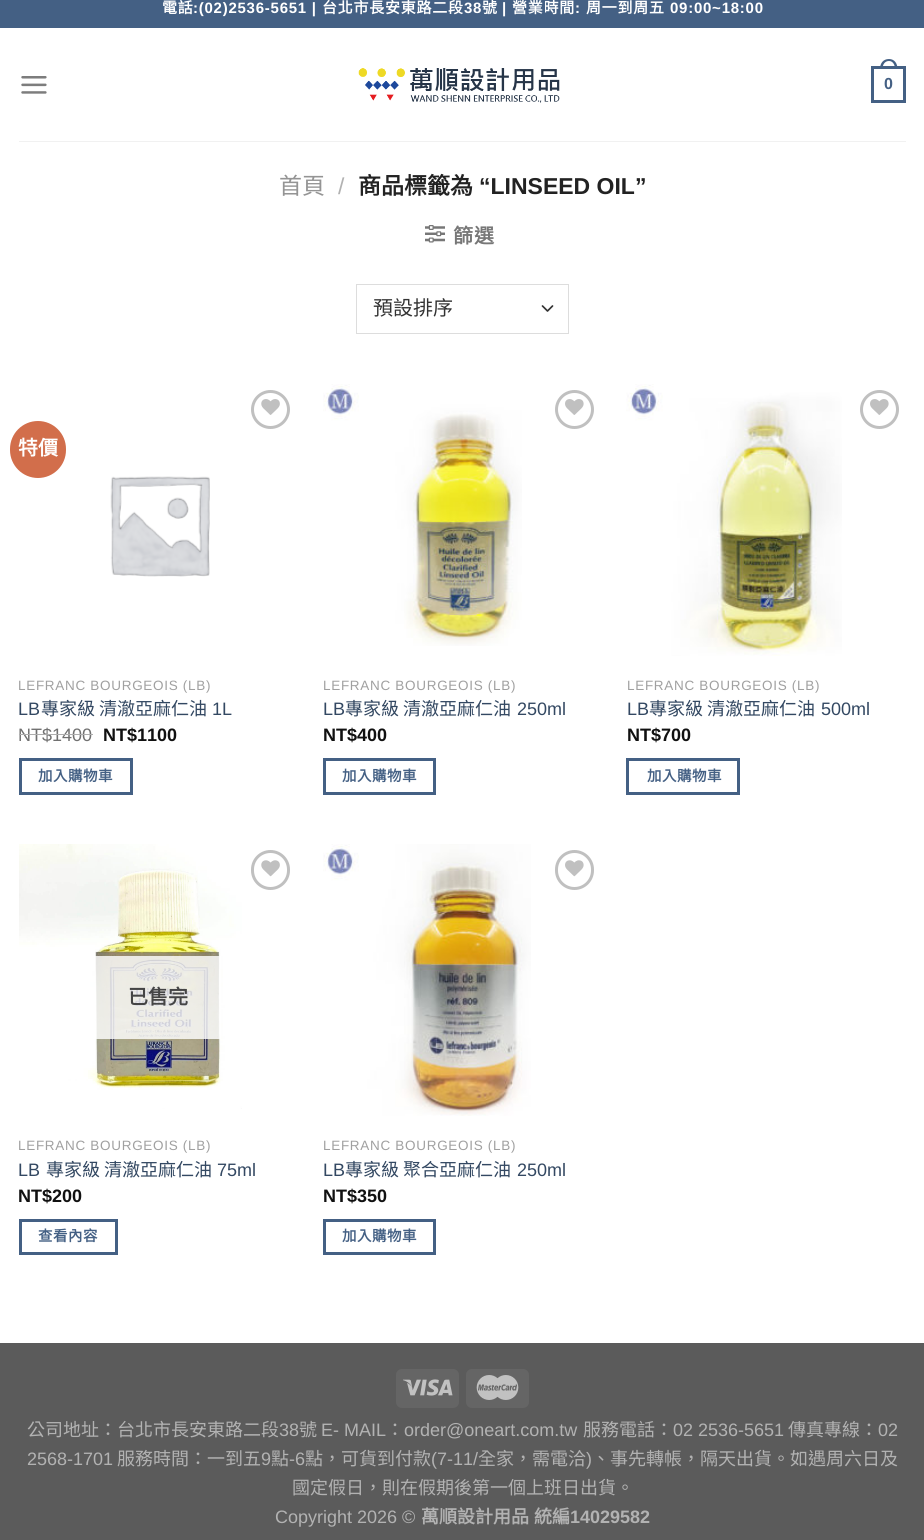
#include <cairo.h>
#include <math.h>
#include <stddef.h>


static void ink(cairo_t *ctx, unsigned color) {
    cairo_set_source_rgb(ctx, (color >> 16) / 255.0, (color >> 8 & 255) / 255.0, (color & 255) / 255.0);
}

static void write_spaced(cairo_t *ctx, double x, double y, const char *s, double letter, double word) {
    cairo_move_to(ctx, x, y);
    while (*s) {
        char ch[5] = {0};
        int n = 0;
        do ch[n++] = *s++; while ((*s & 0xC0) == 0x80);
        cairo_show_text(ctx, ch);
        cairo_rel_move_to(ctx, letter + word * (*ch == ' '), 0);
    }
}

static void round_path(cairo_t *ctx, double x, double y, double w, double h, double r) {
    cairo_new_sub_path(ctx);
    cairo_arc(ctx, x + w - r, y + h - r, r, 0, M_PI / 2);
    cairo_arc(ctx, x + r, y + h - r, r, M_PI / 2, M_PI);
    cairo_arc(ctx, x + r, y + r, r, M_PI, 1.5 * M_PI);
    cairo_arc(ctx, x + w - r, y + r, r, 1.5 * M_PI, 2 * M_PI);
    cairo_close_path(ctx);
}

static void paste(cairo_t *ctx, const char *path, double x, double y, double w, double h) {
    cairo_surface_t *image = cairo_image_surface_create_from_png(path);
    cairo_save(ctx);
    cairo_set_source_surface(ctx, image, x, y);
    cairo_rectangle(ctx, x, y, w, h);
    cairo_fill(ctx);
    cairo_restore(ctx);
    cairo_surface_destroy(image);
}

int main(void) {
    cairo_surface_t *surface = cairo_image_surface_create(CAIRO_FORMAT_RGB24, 924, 1540);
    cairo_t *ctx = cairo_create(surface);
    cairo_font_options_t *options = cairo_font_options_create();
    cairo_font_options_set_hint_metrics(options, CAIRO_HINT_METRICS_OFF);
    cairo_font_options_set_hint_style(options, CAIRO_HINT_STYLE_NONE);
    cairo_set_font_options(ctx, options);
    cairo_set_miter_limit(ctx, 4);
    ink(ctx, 0xFFFFFF);
    cairo_paint(ctx);
    ink(ctx, 0x446084);
    cairo_rectangle(ctx, 0, 0, 924, 28);
    cairo_fill(ctx);
    cairo_select_font_face(ctx, "Noto Sans CJK TC", CAIRO_FONT_SLANT_NORMAL, CAIRO_FONT_WEIGHT_BOLD);
    cairo_set_font_size(ctx, 15);
    ink(ctx, 0xFFFFFF);
    write_spaced(ctx, 162, 13, "電話", 0.75, 0);
    cairo_select_font_face(ctx, "Liberation Sans", CAIRO_FONT_SLANT_NORMAL, CAIRO_FONT_WEIGHT_BOLD);
    write_spaced(ctx, 193, 13, ":(02)2536-5651 |", 0.75, 0);
    cairo_select_font_face(ctx, "Noto Sans CJK TC", CAIRO_FONT_SLANT_NORMAL, CAIRO_FONT_WEIGHT_BOLD);
    write_spaced(ctx, 322, 13, "台北市長安東路二段", 0.75, 0);
    cairo_select_font_face(ctx, "Liberation Sans", CAIRO_FONT_SLANT_NORMAL, CAIRO_FONT_WEIGHT_BOLD);
    write_spaced(ctx, 464, 13, "38", 0.75, 0);
    cairo_select_font_face(ctx, "Noto Sans CJK TC", CAIRO_FONT_SLANT_NORMAL, CAIRO_FONT_WEIGHT_BOLD);
    write_spaced(ctx, 482, 13, "號", 0.75, 0);
    cairo_select_font_face(ctx, "Liberation Sans", CAIRO_FONT_SLANT_NORMAL, CAIRO_FONT_WEIGHT_BOLD);
    write_spaced(ctx, 502, 13, "|", 0.75, 0);
    cairo_select_font_face(ctx, "Noto Sans CJK TC", CAIRO_FONT_SLANT_NORMAL, CAIRO_FONT_WEIGHT_BOLD);
    write_spaced(ctx, 512, 13, "營業時間", 0.75, 0);
    cairo_select_font_face(ctx, "Liberation Sans", CAIRO_FONT_SLANT_NORMAL, CAIRO_FONT_WEIGHT_BOLD);
    write_spaced(ctx, 575, 13, ":", 0.75, 0);
    cairo_select_font_face(ctx, "Noto Sans CJK TC", CAIRO_FONT_SLANT_NORMAL, CAIRO_FONT_WEIGHT_BOLD);
    write_spaced(ctx, 586, 13, "周一到周五", 0.75, 0);
    cairo_select_font_face(ctx, "Liberation Sans", CAIRO_FONT_SLANT_NORMAL, CAIRO_FONT_WEIGHT_BOLD);
    write_spaced(ctx, 670, 13, "09:00~18:00", 0.75, 0);
    paste(ctx, "media/1.png", 21, 76, 26, 18);
    paste(ctx, "media/2.png", 358, 68, 202, 35);
    cairo_rectangle(ctx, 872.5, 67.5, 32, 34);
    ink(ctx, 0x446084);
    cairo_set_line_width(ctx, 3);
    cairo_stroke(ctx);
    cairo_set_fill_rule(ctx, CAIRO_FILL_RULE_EVEN_ODD);
    cairo_new_path(ctx);
    cairo_move_to(ctx, 889, 59);
    cairo_curve_to(ctx, 894.5, 59, 897.5, 63.5, 897.5, 69);
    cairo_line_to(ctx, 880, 69);
    cairo_curve_to(ctx, 880, 63.5, 883, 59, 889, 59);
    cairo_close_path(ctx);
    cairo_move_to(ctx, 889, 61);
    cairo_curve_to(ctx, 893, 61, 895, 65, 895, 69);
    cairo_line_to(ctx, 882.5, 69);
    cairo_curve_to(ctx, 882.5, 65, 884.5, 61, 889, 61);
    cairo_close_path(ctx);
    cairo_fill(ctx);
    cairo_set_font_size(ctx, 16);
    cairo_move_to(ctx, 884, 89);
    cairo_show_text(ctx, "0");
    ink(ctx, 0xF1F1F1);
    cairo_rectangle(ctx, 19, 141, 887, 1);
    cairo_fill(ctx);
    cairo_select_font_face(ctx, "Noto Sans CJK TC", CAIRO_FONT_SLANT_NORMAL, CAIRO_FONT_WEIGHT_NORMAL);
    cairo_set_font_size(ctx, 23);
    ink(ctx, 0x949494);
    cairo_move_to(ctx, 279, 194);
    cairo_show_text(ctx, "首頁");
    cairo_select_font_face(ctx, "Liberation Sans", CAIRO_FONT_SLANT_NORMAL, CAIRO_FONT_WEIGHT_NORMAL);
    ink(ctx, 0xB2B2B2);
    cairo_move_to(ctx, 338, 194);
    cairo_show_text(ctx, "/");
    cairo_select_font_face(ctx, "Noto Sans CJK TC", CAIRO_FONT_SLANT_NORMAL, CAIRO_FONT_WEIGHT_BOLD);
    ink(ctx, 0x222222);
    cairo_move_to(ctx, 358, 194);
    cairo_show_text(ctx, "商品標籤為");
    cairo_select_font_face(ctx, "Liberation Sans", CAIRO_FONT_SLANT_NORMAL, CAIRO_FONT_WEIGHT_BOLD);
    cairo_move_to(ctx, 479, 194);
    cairo_show_text(ctx, "“LINSEED OIL”");
    paste(ctx, "media/3.png", 425, 225, 20, 18);
    cairo_select_font_face(ctx, "Noto Sans CJK TC", CAIRO_FONT_SLANT_NORMAL, CAIRO_FONT_WEIGHT_BOLD);
    cairo_set_font_size(ctx, 20);
    ink(ctx, 0x777777);
    write_spaced(ctx, 453, 243, "篩選", 1, 0);
    cairo_new_path(ctx);
    cairo_move_to(ctx, 542.5, 306);
    cairo_line_to(ctx, 547.5, 311);
    cairo_line_to(ctx, 552.5, 306);
    ink(ctx, 0x333333);
    cairo_set_line_width(ctx, 1.7);
    cairo_set_line_cap(ctx, CAIRO_LINE_CAP_ROUND);
    cairo_set_line_join(ctx, CAIRO_LINE_JOIN_ROUND);
    cairo_stroke(ctx);
    cairo_rectangle(ctx, 356.5, 284.5, 212, 49);
    ink(ctx, 0xDDDDDD);
    cairo_set_line_width(ctx, 1);
    cairo_set_line_cap(ctx, CAIRO_LINE_CAP_BUTT);
    cairo_set_line_join(ctx, CAIRO_LINE_JOIN_MITER);
    cairo_stroke(ctx);
    cairo_select_font_face(ctx, "Noto Sans CJK TC", CAIRO_FONT_SLANT_NORMAL, CAIRO_FONT_WEIGHT_NORMAL);
    ink(ctx, 0x333333);
    cairo_move_to(ctx, 373, 315);
    cairo_show_text(ctx, "預設排序");
    ink(ctx, 0xD26E4B);
    round_path(ctx, 10, 421, 56, 57, 28);
    cairo_fill(ctx);
    cairo_select_font_face(ctx, "Noto Sans CJK TC", CAIRO_FONT_SLANT_NORMAL, CAIRO_FONT_WEIGHT_BOLD);
    ink(ctx, 0xFFFFFF);
    cairo_move_to(ctx, 18, 455);
    cairo_show_text(ctx, "特價");
    cairo_new_path(ctx);
    cairo_arc(ctx, 270.5, 409.5, 18, 0, 2 * M_PI);
    ink(ctx, 0xC0C0C0);
    cairo_set_line_width(ctx, 3);
    cairo_stroke(ctx);
    paste(ctx, "media/4.png", 261, 399, 19, 16);
    paste(ctx, "media/5.png", 110, 476, 100, 101);
    cairo_select_font_face(ctx, "Liberation Sans", CAIRO_FONT_SLANT_NORMAL, CAIRO_FONT_WEIGHT_NORMAL);
    cairo_set_font_size(ctx, 13.5);
    ink(ctx, 0xA0A0A0);
    write_spaced(ctx, 18, 690, "LEFRANC BOURGEOIS (LB)", 0.7, 0);
    cairo_set_font_size(ctx, 18);
    ink(ctx, 0x334862);
    cairo_move_to(ctx, 18, 715);
    cairo_show_text(ctx, "LB");
    cairo_select_font_face(ctx, "Noto Sans CJK TC", CAIRO_FONT_SLANT_NORMAL, CAIRO_FONT_WEIGHT_NORMAL);
    cairo_move_to(ctx, 41, 715);
    cairo_show_text(ctx, "專家級 清澈亞麻仁油");
    cairo_select_font_face(ctx, "Liberation Sans", CAIRO_FONT_SLANT_NORMAL, CAIRO_FONT_WEIGHT_NORMAL);
    cairo_move_to(ctx, 212, 715);
    cairo_show_text(ctx, "1L");
    ink(ctx, 0x707070);
    cairo_move_to(ctx, 18, 741);
    cairo_show_text(ctx, "NT$1400");
    ink(ctx, 0xADADAD);
    cairo_rectangle(ctx, 19, 734, 74, 1);
    cairo_fill(ctx);
    cairo_select_font_face(ctx, "Liberation Sans", CAIRO_FONT_SLANT_NORMAL, CAIRO_FONT_WEIGHT_BOLD);
    ink(ctx, 0x111111);
    cairo_move_to(ctx, 103, 741);
    cairo_show_text(ctx, "NT$1100");
    cairo_rectangle(ctx, 20.5, 759.5, 111, 34);
    ink(ctx, 0x446084);
    cairo_stroke(ctx);
    cairo_select_font_face(ctx, "Noto Sans CJK TC", CAIRO_FONT_SLANT_NORMAL, CAIRO_FONT_WEIGHT_BOLD);
    cairo_set_font_size(ctx, 14.5);
    write_spaced(ctx, 38, 781, "加入購物車", 0.5, 0);
    paste(ctx, "media/6.png", 323, 384, 199, 262);
    cairo_arc(ctx, 574.5, 409.5, 18, 0, 2 * M_PI);
    ink(ctx, 0xC0C0C0);
    cairo_stroke(ctx);
    paste(ctx, "media/7.png", 565, 399, 19, 16);
    cairo_select_font_face(ctx, "Liberation Sans", CAIRO_FONT_SLANT_NORMAL, CAIRO_FONT_WEIGHT_NORMAL);
    cairo_set_font_size(ctx, 13.5);
    ink(ctx, 0xA0A0A0);
    write_spaced(ctx, 323, 690, "LEFRANC BOURGEOIS (LB)", 0.7, 0);
    cairo_set_font_size(ctx, 18);
    ink(ctx, 0x334862);
    cairo_move_to(ctx, 323, 715);
    cairo_show_text(ctx, "LB");
    cairo_select_font_face(ctx, "Noto Sans CJK TC", CAIRO_FONT_SLANT_NORMAL, CAIRO_FONT_WEIGHT_NORMAL);
    cairo_move_to(ctx, 345, 715);
    cairo_show_text(ctx, "專家級 清澈亞麻仁油");
    cairo_select_font_face(ctx, "Liberation Sans", CAIRO_FONT_SLANT_NORMAL, CAIRO_FONT_WEIGHT_NORMAL);
    cairo_move_to(ctx, 517, 715);
    cairo_show_text(ctx, "250ml");
    cairo_select_font_face(ctx, "Liberation Sans", CAIRO_FONT_SLANT_NORMAL, CAIRO_FONT_WEIGHT_BOLD);
    ink(ctx, 0x111111);
    cairo_move_to(ctx, 323, 741);
    cairo_show_text(ctx, "NT$400");
    cairo_rectangle(ctx, 324.5, 759.5, 110, 34);
    ink(ctx, 0x446084);
    cairo_stroke(ctx);
    cairo_select_font_face(ctx, "Noto Sans CJK TC", CAIRO_FONT_SLANT_NORMAL, CAIRO_FONT_WEIGHT_BOLD);
    cairo_set_font_size(ctx, 14.5);
    write_spaced(ctx, 342, 781, "加入購物車", 0.5, 0);
    paste(ctx, "media/8.png", 626, 384, 216, 272);
    cairo_arc(ctx, 879.5, 409.5, 18, 0, 2 * M_PI);
    ink(ctx, 0xC0C0C0);
    cairo_stroke(ctx);
    paste(ctx, "media/7.png", 870, 399, 19, 16);
    cairo_select_font_face(ctx, "Liberation Sans", CAIRO_FONT_SLANT_NORMAL, CAIRO_FONT_WEIGHT_NORMAL);
    cairo_set_font_size(ctx, 13.5);
    ink(ctx, 0xA0A0A0);
    write_spaced(ctx, 627, 690, "LEFRANC BOURGEOIS (LB)", 0.7, 0);
    cairo_set_font_size(ctx, 18);
    ink(ctx, 0x334862);
    cairo_move_to(ctx, 627, 715);
    cairo_show_text(ctx, "LB");
    cairo_select_font_face(ctx, "Noto Sans CJK TC", CAIRO_FONT_SLANT_NORMAL, CAIRO_FONT_WEIGHT_NORMAL);
    cairo_move_to(ctx, 649, 715);
    cairo_show_text(ctx, "專家級 清澈亞麻仁油");
    cairo_select_font_face(ctx, "Liberation Sans", CAIRO_FONT_SLANT_NORMAL, CAIRO_FONT_WEIGHT_NORMAL);
    cairo_move_to(ctx, 821, 715);
    cairo_show_text(ctx, "500ml");
    cairo_select_font_face(ctx, "Liberation Sans", CAIRO_FONT_SLANT_NORMAL, CAIRO_FONT_WEIGHT_BOLD);
    ink(ctx, 0x111111);
    cairo_move_to(ctx, 627, 741);
    cairo_show_text(ctx, "NT$700");
    cairo_rectangle(ctx, 627.5, 759.5, 111, 34);
    ink(ctx, 0x446084);
    cairo_stroke(ctx);
    cairo_select_font_face(ctx, "Noto Sans CJK TC", CAIRO_FONT_SLANT_NORMAL, CAIRO_FONT_WEIGHT_BOLD);
    cairo_set_font_size(ctx, 14.5);
    write_spaced(ctx, 647, 781, "加入購物車", 0.5, 0);
    paste(ctx, "media/9.png", 19, 844, 223, 265);
    round_path(ctx, 252.5, 851.5, 36, 37, 18);
    ink(ctx, 0xC0C0C0);
    cairo_stroke(ctx);
    paste(ctx, "media/10.png", 261, 860, 19, 17);
    cairo_set_source_rgba(ctx, 1, 1, 1, 0.81);
    cairo_rectangle(ctx, 95, 956, 126, 83);
    cairo_fill(ctx);
    cairo_set_font_size(ctx, 20);
    ink(ctx, 0x454545);
    cairo_move_to(ctx, 128, 1004);
    cairo_show_text(ctx, "已售完");
    cairo_select_font_face(ctx, "Liberation Sans", CAIRO_FONT_SLANT_NORMAL, CAIRO_FONT_WEIGHT_NORMAL);
    cairo_set_font_size(ctx, 13.5);
    ink(ctx, 0xA0A0A0);
    write_spaced(ctx, 18, 1150, "LEFRANC BOURGEOIS (LB)", 0.7, 0);
    cairo_set_font_size(ctx, 18);
    ink(ctx, 0x334862);
    cairo_move_to(ctx, 18, 1176);
    cairo_show_text(ctx, "LB");
    cairo_select_font_face(ctx, "Noto Sans CJK TC", CAIRO_FONT_SLANT_NORMAL, CAIRO_FONT_WEIGHT_NORMAL);
    cairo_move_to(ctx, 46, 1176);
    cairo_show_text(ctx, "專家級 清澈亞麻仁油");
    cairo_select_font_face(ctx, "Liberation Sans", CAIRO_FONT_SLANT_NORMAL, CAIRO_FONT_WEIGHT_NORMAL);
    cairo_move_to(ctx, 217, 1176);
    cairo_show_text(ctx, "75ml");
    cairo_select_font_face(ctx, "Liberation Sans", CAIRO_FONT_SLANT_NORMAL, CAIRO_FONT_WEIGHT_BOLD);
    ink(ctx, 0x111111);
    cairo_move_to(ctx, 18, 1202);
    cairo_show_text(ctx, "NT$200");
    cairo_rectangle(ctx, 20.5, 1220.5, 96, 33);
    ink(ctx, 0x446084);
    cairo_stroke(ctx);
    cairo_select_font_face(ctx, "Noto Sans CJK TC", CAIRO_FONT_SLANT_NORMAL, CAIRO_FONT_WEIGHT_BOLD);
    cairo_set_font_size(ctx, 14.5);
    write_spaced(ctx, 38, 1241, "查看內容", 0.5, 0);
    paste(ctx, "media/11.png", 323, 844, 208, 272);
    round_path(ctx, 556.5, 851.5, 36, 37, 18);
    ink(ctx, 0xC0C0C0);
    cairo_stroke(ctx);
    paste(ctx, "media/12.png", 565, 860, 19, 17);
    cairo_select_font_face(ctx, "Liberation Sans", CAIRO_FONT_SLANT_NORMAL, CAIRO_FONT_WEIGHT_NORMAL);
    cairo_set_font_size(ctx, 13.5);
    ink(ctx, 0xA0A0A0);
    write_spaced(ctx, 323, 1150, "LEFRANC BOURGEOIS (LB)", 0.7, 0);
    cairo_set_font_size(ctx, 18);
    ink(ctx, 0x334862);
    cairo_move_to(ctx, 323, 1176);
    cairo_show_text(ctx, "LB");
    cairo_select_font_face(ctx, "Noto Sans CJK TC", CAIRO_FONT_SLANT_NORMAL, CAIRO_FONT_WEIGHT_NORMAL);
    cairo_move_to(ctx, 345, 1176);
    cairo_show_text(ctx, "專家級 聚合亞麻仁油");
    cairo_select_font_face(ctx, "Liberation Sans", CAIRO_FONT_SLANT_NORMAL, CAIRO_FONT_WEIGHT_NORMAL);
    cairo_move_to(ctx, 517, 1176);
    cairo_show_text(ctx, "250ml");
    cairo_select_font_face(ctx, "Liberation Sans", CAIRO_FONT_SLANT_NORMAL, CAIRO_FONT_WEIGHT_BOLD);
    ink(ctx, 0x111111);
    cairo_move_to(ctx, 323, 1202);
    cairo_show_text(ctx, "NT$350");
    cairo_rectangle(ctx, 324.5, 1220.5, 110, 33);
    ink(ctx, 0x446084);
    cairo_stroke(ctx);
    cairo_select_font_face(ctx, "Noto Sans CJK TC", CAIRO_FONT_SLANT_NORMAL, CAIRO_FONT_WEIGHT_BOLD);
    cairo_set_font_size(ctx, 14.5);
    write_spaced(ctx, 342, 1241, "加入購物車", 0.5, 0);
    ink(ctx, 0x5B5B5B);
    cairo_rectangle(ctx, 0, 1343, 924, 197);
    cairo_fill(ctx);
    ink(ctx, 0x656565);
    round_path(ctx, 396, 1369, 63, 39, 6);
    cairo_fill(ctx);
    paste(ctx, "media/13.png", 403, 1379, 50, 17);
    round_path(ctx, 466, 1369, 63, 39, 6);
    cairo_fill(ctx);
    paste(ctx, "media/14.png", 476, 1375, 43, 25);
    cairo_select_font_face(ctx, "Noto Sans CJK TC", CAIRO_FONT_SLANT_NORMAL, CAIRO_FONT_WEIGHT_NORMAL);
    cairo_set_font_size(ctx, 18);
    ink(ctx, 0xB2B2B2);
    cairo_move_to(ctx, 27, 1436);
    cairo_show_text(ctx, "公司地址：台北市長安東路二段");
    cairo_select_font_face(ctx, "Liberation Sans", CAIRO_FONT_SLANT_NORMAL, CAIRO_FONT_WEIGHT_NORMAL);
    cairo_move_to(ctx, 279, 1436);
    cairo_show_text(ctx, "38");
    cairo_select_font_face(ctx, "Noto Sans CJK TC", CAIRO_FONT_SLANT_NORMAL, CAIRO_FONT_WEIGHT_NORMAL);
    cairo_move_to(ctx, 299, 1436);
    cairo_show_text(ctx, "號");
    cairo_select_font_face(ctx, "Liberation Sans", CAIRO_FONT_SLANT_NORMAL, CAIRO_FONT_WEIGHT_NORMAL);
    cairo_move_to(ctx, 321, 1436);
    cairo_show_text(ctx, "E- MAIL");
    cairo_select_font_face(ctx, "Noto Sans CJK TC", CAIRO_FONT_SLANT_NORMAL, CAIRO_FONT_WEIGHT_NORMAL);
    cairo_move_to(ctx, 386, 1436);
    cairo_show_text(ctx, "：");
    cairo_select_font_face(ctx, "Liberation Sans", CAIRO_FONT_SLANT_NORMAL, CAIRO_FONT_WEIGHT_NORMAL);
    cairo_move_to(ctx, 404, 1436);
    cairo_show_text(ctx, "order@oneart.com.tw");
    cairo_select_font_face(ctx, "Noto Sans CJK TC", CAIRO_FONT_SLANT_NORMAL, CAIRO_FONT_WEIGHT_NORMAL);
    cairo_move_to(ctx, 583, 1436);
    cairo_show_text(ctx, "服務電話：");
    cairo_select_font_face(ctx, "Liberation Sans", CAIRO_FONT_SLANT_NORMAL, CAIRO_FONT_WEIGHT_NORMAL);
    cairo_move_to(ctx, 673, 1436);
    cairo_show_text(ctx, "02 2536-5651");
    cairo_select_font_face(ctx, "Noto Sans CJK TC", CAIRO_FONT_SLANT_NORMAL, CAIRO_FONT_WEIGHT_NORMAL);
    cairo_move_to(ctx, 788, 1436);
    cairo_show_text(ctx, "傳真專線：");
    cairo_select_font_face(ctx, "Liberation Sans", CAIRO_FONT_SLANT_NORMAL, CAIRO_FONT_WEIGHT_NORMAL);
    cairo_move_to(ctx, 878, 1436);
    cairo_show_text(ctx, "02");
    cairo_move_to(ctx, 27, 1465);
    cairo_show_text(ctx, "2568-1701");
    cairo_select_font_face(ctx, "Noto Sans CJK TC", CAIRO_FONT_SLANT_NORMAL, CAIRO_FONT_WEIGHT_NORMAL);
    cairo_move_to(ctx, 117, 1465);
    cairo_show_text(ctx, "服務時間：一到五");
    cairo_select_font_face(ctx, "Liberation Sans", CAIRO_FONT_SLANT_NORMAL, CAIRO_FONT_WEIGHT_NORMAL);
    cairo_move_to(ctx, 261, 1465);
    cairo_show_text(ctx, "9");
    cairo_select_font_face(ctx, "Noto Sans CJK TC", CAIRO_FONT_SLANT_NORMAL, CAIRO_FONT_WEIGHT_NORMAL);
    cairo_move_to(ctx, 271, 1465);
    cairo_show_text(ctx, "點");
    cairo_select_font_face(ctx, "Liberation Sans", CAIRO_FONT_SLANT_NORMAL, CAIRO_FONT_WEIGHT_NORMAL);
    cairo_move_to(ctx, 289, 1465);
    cairo_show_text(ctx, "-6");
    cairo_select_font_face(ctx, "Noto Sans CJK TC", CAIRO_FONT_SLANT_NORMAL, CAIRO_FONT_WEIGHT_NORMAL);
    cairo_move_to(ctx, 305, 1465);
    cairo_show_text(ctx, "點，可貨到付款");
    cairo_select_font_face(ctx, "Liberation Sans", CAIRO_FONT_SLANT_NORMAL, CAIRO_FONT_WEIGHT_NORMAL);
    cairo_move_to(ctx, 431, 1465);
    cairo_show_text(ctx, "(7-11/");
    cairo_select_font_face(ctx, "Noto Sans CJK TC", CAIRO_FONT_SLANT_NORMAL, CAIRO_FONT_WEIGHT_NORMAL);
    cairo_move_to(ctx, 478, 1465);
    cairo_show_text(ctx, "全家，需電洽");
    cairo_select_font_face(ctx, "Liberation Sans", CAIRO_FONT_SLANT_NORMAL, CAIRO_FONT_WEIGHT_NORMAL);
    cairo_move_to(ctx, 586, 1465);
    cairo_show_text(ctx, ")");
    cairo_select_font_face(ctx, "Noto Sans CJK TC", CAIRO_FONT_SLANT_NORMAL, CAIRO_FONT_WEIGHT_NORMAL);
    cairo_move_to(ctx, 592, 1465);
    cairo_show_text(ctx, "、事先轉帳，隔天出貨。如遇周六日及");
    cairo_move_to(ctx, 292, 1494);
    cairo_show_text(ctx, "國定假日，則在假期後第一個上班日出貨。");
    cairo_select_font_face(ctx, "Liberation Sans", CAIRO_FONT_SLANT_NORMAL, CAIRO_FONT_WEIGHT_NORMAL);
    cairo_move_to(ctx, 275, 1523);
    cairo_show_text(ctx, "Copyright 2026 ©");
    cairo_select_font_face(ctx, "Noto Sans CJK TC", CAIRO_FONT_SLANT_NORMAL, CAIRO_FONT_WEIGHT_BOLD);
    write_spaced(ctx, 421, 1523, "萬順設計用品 統編", 0, 1);
    cairo_select_font_face(ctx, "Liberation Sans", CAIRO_FONT_SLANT_NORMAL, CAIRO_FONT_WEIGHT_BOLD);
    cairo_move_to(ctx, 570, 1523);
    cairo_show_text(ctx, "14029582");
    cairo_surface_write_to_png(surface, "image.png");
    cairo_font_options_destroy(options);
    cairo_destroy(ctx);
    cairo_surface_destroy(surface);
    return 0;
}
